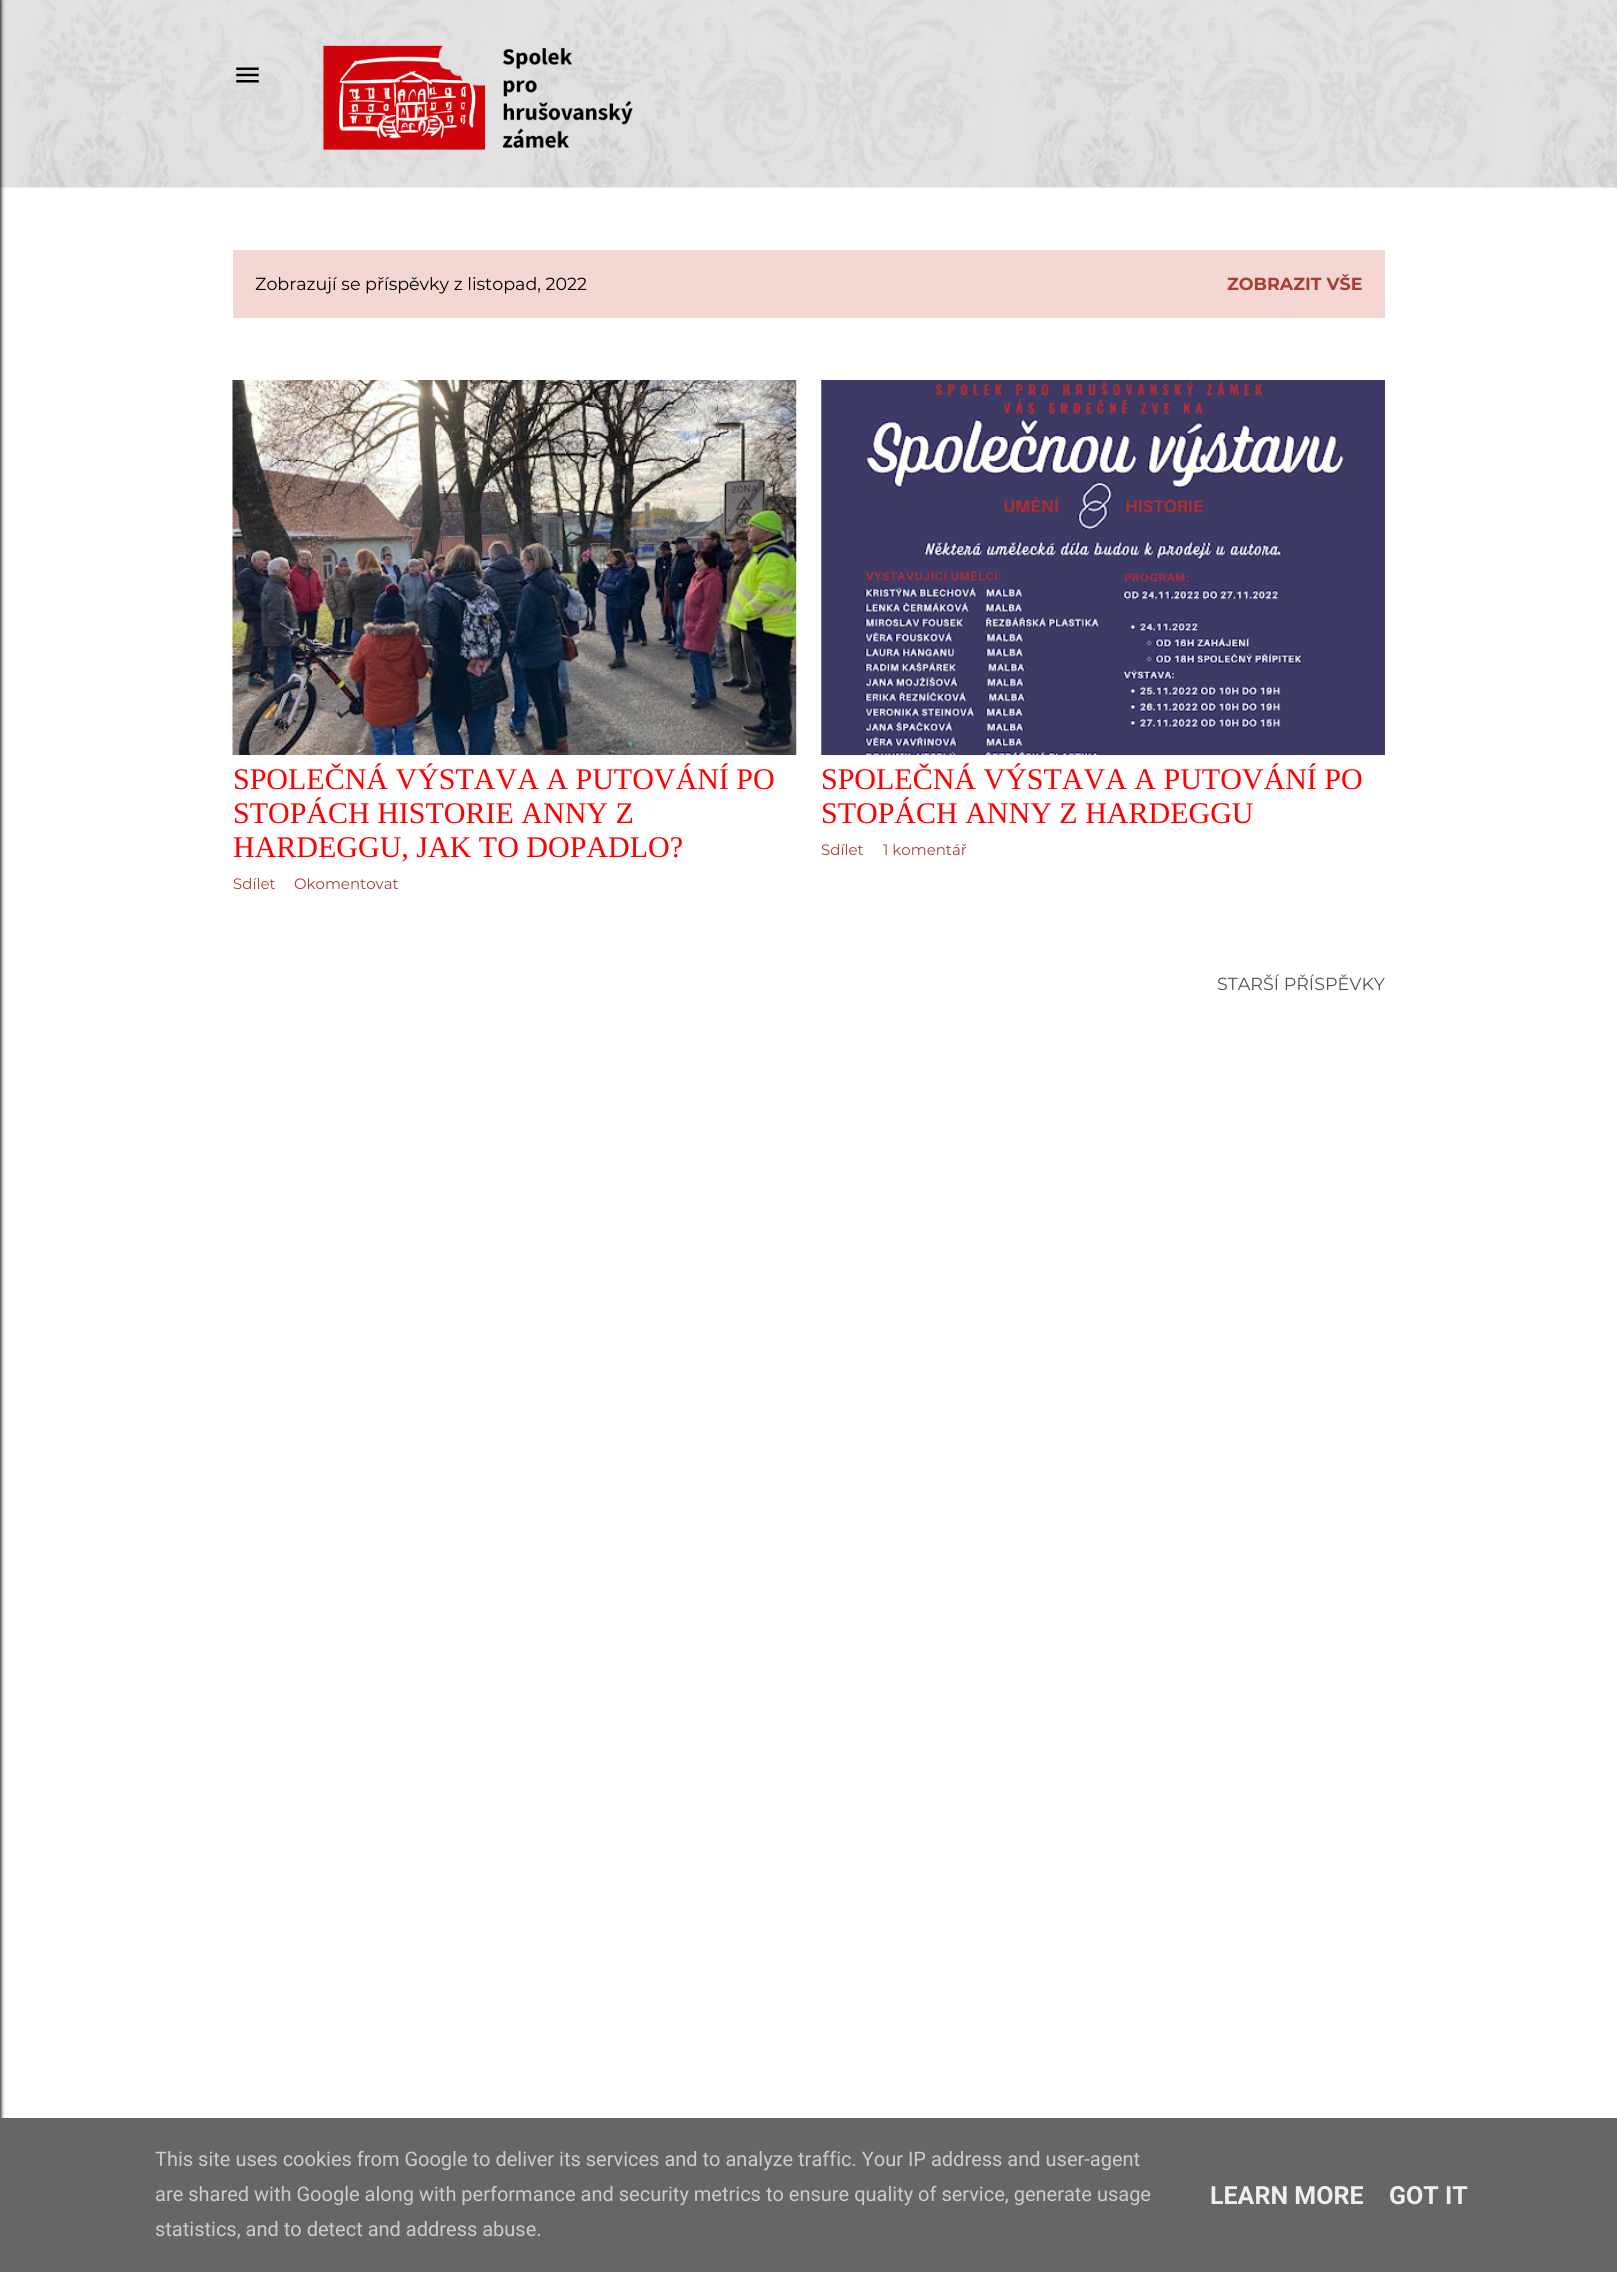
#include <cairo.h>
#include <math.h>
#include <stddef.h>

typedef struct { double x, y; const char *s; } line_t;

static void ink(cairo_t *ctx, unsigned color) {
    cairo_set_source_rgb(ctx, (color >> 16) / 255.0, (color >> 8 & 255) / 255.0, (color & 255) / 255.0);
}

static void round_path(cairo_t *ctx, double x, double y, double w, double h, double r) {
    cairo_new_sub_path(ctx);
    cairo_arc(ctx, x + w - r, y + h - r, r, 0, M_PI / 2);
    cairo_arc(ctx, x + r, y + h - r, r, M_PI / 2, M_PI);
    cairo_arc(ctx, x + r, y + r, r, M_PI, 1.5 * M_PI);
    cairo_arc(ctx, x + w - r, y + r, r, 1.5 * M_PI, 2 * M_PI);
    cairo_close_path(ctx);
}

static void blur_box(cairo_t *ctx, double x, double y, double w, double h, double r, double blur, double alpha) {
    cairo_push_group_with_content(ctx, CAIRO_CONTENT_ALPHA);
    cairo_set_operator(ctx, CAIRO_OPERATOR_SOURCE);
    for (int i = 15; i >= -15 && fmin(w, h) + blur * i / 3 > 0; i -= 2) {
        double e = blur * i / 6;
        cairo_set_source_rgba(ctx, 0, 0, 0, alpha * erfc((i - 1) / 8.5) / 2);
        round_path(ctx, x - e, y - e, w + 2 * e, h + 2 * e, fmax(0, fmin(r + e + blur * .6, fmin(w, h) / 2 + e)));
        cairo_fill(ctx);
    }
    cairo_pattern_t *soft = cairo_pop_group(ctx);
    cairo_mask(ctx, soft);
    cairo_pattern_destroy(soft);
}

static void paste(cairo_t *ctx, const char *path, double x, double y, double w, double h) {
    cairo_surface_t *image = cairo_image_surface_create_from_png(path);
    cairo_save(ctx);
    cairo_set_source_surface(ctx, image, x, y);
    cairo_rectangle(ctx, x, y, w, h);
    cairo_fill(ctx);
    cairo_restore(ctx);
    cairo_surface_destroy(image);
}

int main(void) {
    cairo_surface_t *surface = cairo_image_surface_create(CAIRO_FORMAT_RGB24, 1617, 2272);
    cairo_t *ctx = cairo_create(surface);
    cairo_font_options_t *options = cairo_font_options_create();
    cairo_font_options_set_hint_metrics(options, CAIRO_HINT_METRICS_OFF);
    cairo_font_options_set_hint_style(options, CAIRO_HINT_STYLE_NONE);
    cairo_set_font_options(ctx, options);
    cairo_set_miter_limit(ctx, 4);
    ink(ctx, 0xFFFFFF);
    cairo_paint(ctx);
    paste(ctx, "media/1.png", 0, 0, 1617, 188);
    ink(ctx, 0x000000);
    blur_box(ctx, -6, 0, 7, 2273, 0, 2, 1);
    paste(ctx, "media/2.png", 236, 67, 23, 16);
    paste(ctx, "media/3.png", 323, 45, 310, 105);
    ink(ctx, 0xF4D6D3);
    cairo_rectangle(ctx, 233, 250, 1152, 68);
    cairo_fill(ctx);
    cairo_select_font_face(ctx, "Montserrat", CAIRO_FONT_SLANT_NORMAL, CAIRO_FONT_WEIGHT_NORMAL);
    cairo_set_font_size(ctx, 17.5);
    ink(ctx, 0x000000);
    cairo_move_to(ctx, 255, 290);
    cairo_show_text(ctx, "Zobrazují se příspěvky z listopad, 2022");
    cairo_select_font_face(ctx, "Montserrat", CAIRO_FONT_SLANT_NORMAL, CAIRO_FONT_WEIGHT_BOLD);
    ink(ctx, 0xA93E33);
    cairo_move_to(ctx, 1227, 290);
    cairo_show_text(ctx, "ZOBRAZIT VŠE");
    paste(ctx, "media/4.png", 232, 380, 565, 375);
    cairo_select_font_face(ctx, "Liberation Serif", CAIRO_FONT_SLANT_NORMAL, CAIRO_FONT_WEIGHT_NORMAL);
    cairo_set_font_size(ctx, 30);
    ink(ctx, 0xFF0000);
    {
        static const line_t items[] = {
            {233, 789, "SPOLEČNÁ VÝSTAVA A PUTOVÁNÍ PO"},
            {233, 823, "STOPÁCH HISTORIE ANNY Z"},
            {233, 857, "HARDEGGU, JAK TO DOPADLO?"},
        };
        for (size_t i = 0; i < sizeof items / sizeof *items; i++) {
            cairo_move_to(ctx, items[i].x, items[i].y);
            cairo_show_text(ctx, items[i].s);
        }
    }
    cairo_select_font_face(ctx, "Montserrat", CAIRO_FONT_SLANT_NORMAL, CAIRO_FONT_WEIGHT_NORMAL);
    cairo_set_font_size(ctx, 15);
    ink(ctx, 0xA93E33);
    cairo_move_to(ctx, 233, 889);
    cairo_show_text(ctx, "Sdílet");
    cairo_move_to(ctx, 294, 889);
    cairo_show_text(ctx, "Okomentovat");
    paste(ctx, "media/5.png", 821, 380, 564, 375);
    cairo_select_font_face(ctx, "Liberation Serif", CAIRO_FONT_SLANT_NORMAL, CAIRO_FONT_WEIGHT_NORMAL);
    cairo_set_font_size(ctx, 30);
    ink(ctx, 0xFF0000);
    cairo_move_to(ctx, 821, 789);
    cairo_show_text(ctx, "SPOLEČNÁ VÝSTAVA A PUTOVÁNÍ PO");
    cairo_move_to(ctx, 821, 823);
    cairo_show_text(ctx, "STOPÁCH ANNY Z HARDEGGU");
    cairo_select_font_face(ctx, "Montserrat", CAIRO_FONT_SLANT_NORMAL, CAIRO_FONT_WEIGHT_NORMAL);
    cairo_set_font_size(ctx, 15);
    ink(ctx, 0xA93E33);
    cairo_move_to(ctx, 821, 855);
    cairo_show_text(ctx, "Sdílet");
    cairo_move_to(ctx, 883, 855);
    cairo_show_text(ctx, "1 komentář");
    cairo_set_font_size(ctx, 17.5);
    ink(ctx, 0x515151);
    cairo_move_to(ctx, 1217, 990);
    cairo_show_text(ctx, "STARŠÍ PŘÍSPĚVKY");
    ink(ctx, 0x666666);
    cairo_rectangle(ctx, 0, 2118, 1617, 154);
    cairo_fill(ctx);
    cairo_select_font_face(ctx, "Roboto", CAIRO_FONT_SLANT_NORMAL, CAIRO_FONT_WEIGHT_NORMAL);
    cairo_set_font_size(ctx, 20);
    ink(ctx, 0xCCCCCC);
    {
        static const line_t items[] = {
            {155, 2166, "This site uses cookies from Google to deliver its services and to analyze traffic. Your IP address and user-agent"},
            {155, 2201, "are shared with Google along with performance and security metrics to ensure quality of service, generate usage"},
            {155, 2236, "statistics, and to detect and address abuse."},
        };
        for (size_t i = 0; i < sizeof items / sizeof *items; i++) {
            cairo_move_to(ctx, items[i].x, items[i].y);
            cairo_show_text(ctx, items[i].s);
        }
    }
    cairo_select_font_face(ctx, "Roboto", CAIRO_FONT_SLANT_NORMAL, CAIRO_FONT_WEIGHT_BOLD);
    cairo_set_font_size(ctx, 25);
    ink(ctx, 0xEEEEEE);
    cairo_move_to(ctx, 1210, 2204);
    cairo_show_text(ctx, "LEARN MORE");
    cairo_move_to(ctx, 1389, 2204);
    cairo_show_text(ctx, "GOT IT");
    cairo_surface_write_to_png(surface, "image.png");
    cairo_font_options_destroy(options);
    cairo_destroy(ctx);
    cairo_surface_destroy(surface);
    return 0;
}
